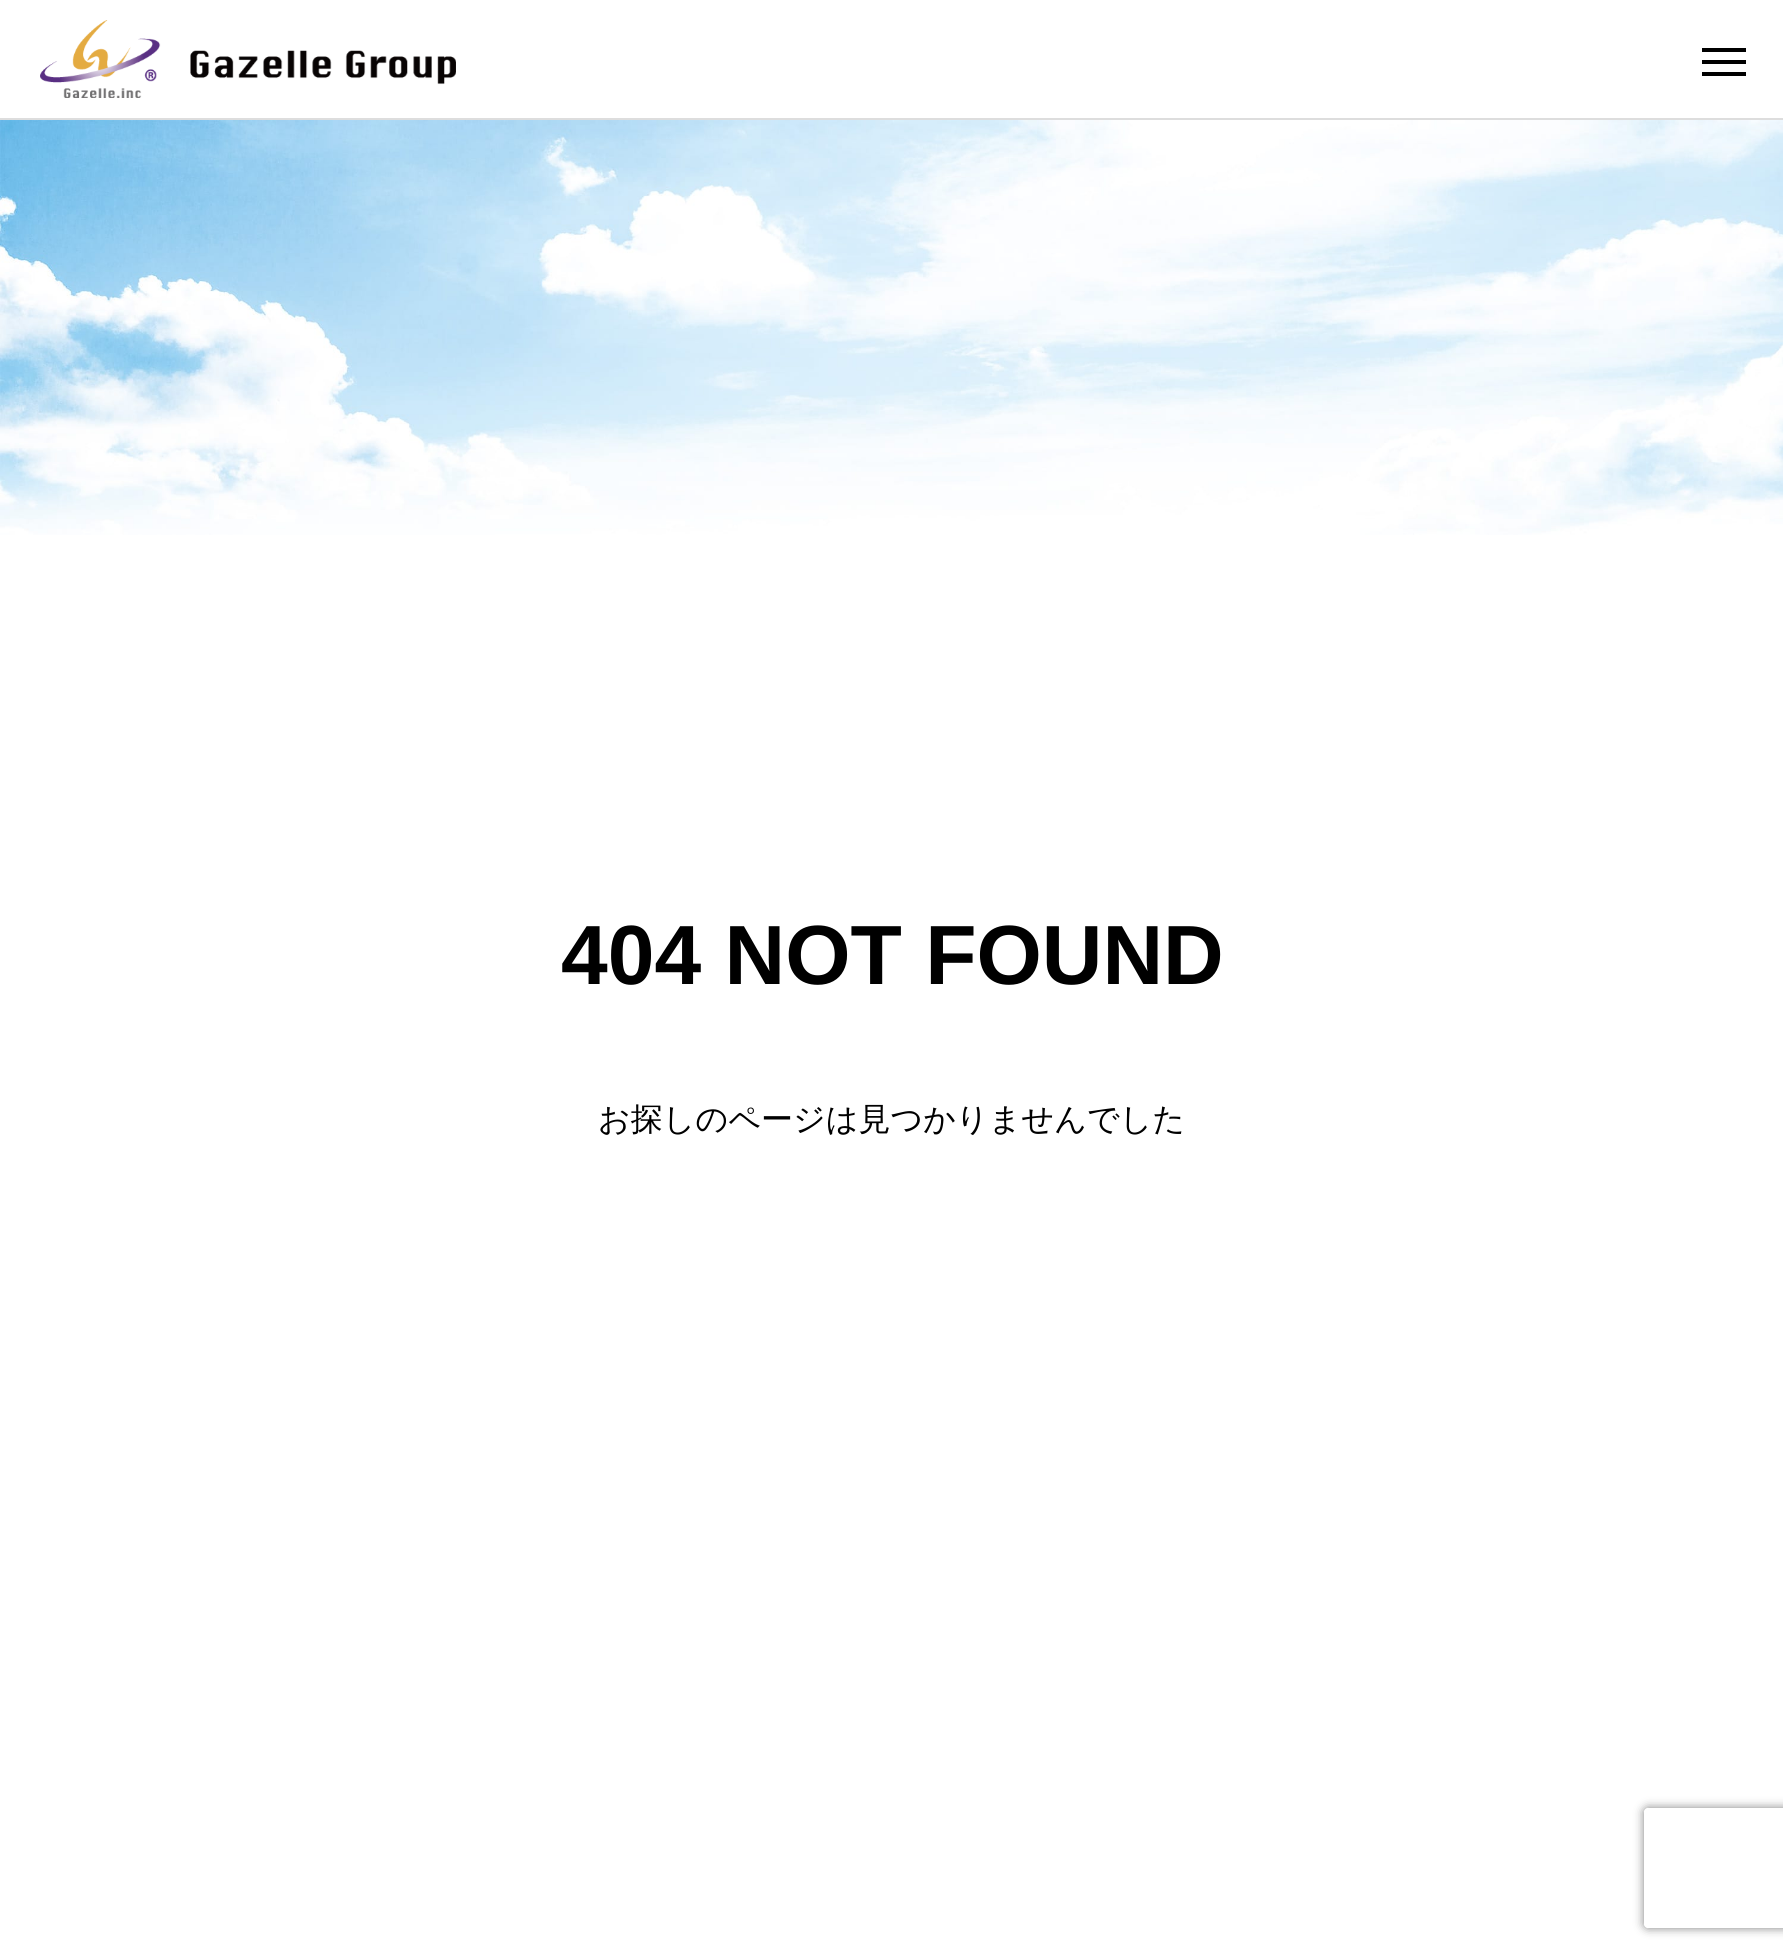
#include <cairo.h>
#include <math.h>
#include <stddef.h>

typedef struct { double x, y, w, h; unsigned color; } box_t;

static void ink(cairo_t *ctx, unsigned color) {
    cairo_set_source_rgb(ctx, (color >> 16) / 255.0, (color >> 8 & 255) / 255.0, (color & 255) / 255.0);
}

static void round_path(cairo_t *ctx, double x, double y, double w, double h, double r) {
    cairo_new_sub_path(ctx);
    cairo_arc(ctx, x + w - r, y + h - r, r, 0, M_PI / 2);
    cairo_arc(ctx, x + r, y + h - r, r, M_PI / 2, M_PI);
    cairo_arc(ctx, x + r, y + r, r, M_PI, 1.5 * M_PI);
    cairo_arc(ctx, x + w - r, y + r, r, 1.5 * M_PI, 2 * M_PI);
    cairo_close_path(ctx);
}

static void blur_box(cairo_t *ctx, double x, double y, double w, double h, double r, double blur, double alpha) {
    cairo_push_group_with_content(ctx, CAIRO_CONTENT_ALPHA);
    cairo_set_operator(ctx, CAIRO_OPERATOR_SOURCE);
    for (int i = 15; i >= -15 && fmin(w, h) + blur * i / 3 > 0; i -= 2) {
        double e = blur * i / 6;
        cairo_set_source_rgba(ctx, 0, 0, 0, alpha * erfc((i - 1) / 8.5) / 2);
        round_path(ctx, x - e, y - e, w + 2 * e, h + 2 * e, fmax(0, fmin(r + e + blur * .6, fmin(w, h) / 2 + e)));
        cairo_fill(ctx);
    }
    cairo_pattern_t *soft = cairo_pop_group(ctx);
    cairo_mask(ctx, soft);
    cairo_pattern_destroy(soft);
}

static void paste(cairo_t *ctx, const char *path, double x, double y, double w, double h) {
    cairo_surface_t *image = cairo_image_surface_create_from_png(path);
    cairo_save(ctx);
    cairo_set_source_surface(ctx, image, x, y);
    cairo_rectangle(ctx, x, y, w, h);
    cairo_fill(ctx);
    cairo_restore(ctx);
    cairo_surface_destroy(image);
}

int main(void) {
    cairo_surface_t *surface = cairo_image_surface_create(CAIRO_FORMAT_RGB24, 1783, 1956);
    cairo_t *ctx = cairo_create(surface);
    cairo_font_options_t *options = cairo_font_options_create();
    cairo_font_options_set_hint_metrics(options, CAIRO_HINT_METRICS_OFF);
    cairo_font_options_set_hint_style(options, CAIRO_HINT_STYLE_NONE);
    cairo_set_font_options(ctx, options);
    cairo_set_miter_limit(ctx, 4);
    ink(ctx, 0xFFFFFF);
    cairo_paint(ctx);
    ink(ctx, 0xDDDDDD);
    cairo_rectangle(ctx, 0, 118, 1783, 2);
    cairo_fill(ctx);
    paste(ctx, "media/1.png", 40, 20, 416, 78);
    {
        static const box_t items[] = {
            {1702, 48, 44, 4, 0x000000},
            {1702, 60, 44, 4, 0x000000},
            {1702, 72, 44, 4, 0x000000},
        };
        for (size_t i = 0; i < sizeof items / sizeof *items; i++) {
            ink(ctx, items[i].color);
            cairo_rectangle(ctx, items[i].x, items[i].y, items[i].w, items[i].h);
            cairo_fill(ctx);
        }
    }
    paste(ctx, "media/2.png", 0, 120, 1783, 415);
    cairo_select_font_face(ctx, "Liberation Sans", CAIRO_FONT_SLANT_NORMAL, CAIRO_FONT_WEIGHT_BOLD);
    cairo_set_font_size(ctx, 84);
    cairo_move_to(ctx, 561, 984);
    cairo_show_text(ctx, "404 NOT FOUND");
    cairo_select_font_face(ctx, "WenQuanYi Zen Hei Medium", CAIRO_FONT_SLANT_NORMAL, CAIRO_FONT_WEIGHT_NORMAL);
    cairo_set_font_size(ctx, 32);
    cairo_move_to(ctx, 598, 1130);
    cairo_show_text(ctx, "お探しのページは見つかりませんでした");
    cairo_save(ctx);
    cairo_set_fill_rule(ctx, CAIRO_FILL_RULE_EVEN_ODD);
    cairo_new_path(ctx);
    cairo_move_to(ctx, 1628, 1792);
    cairo_line_to(ctx, 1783, 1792);
    cairo_line_to(ctx, 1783, 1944);
    cairo_line_to(ctx, 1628, 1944);
    cairo_close_path(ctx);
    cairo_move_to(ctx, 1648, 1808);
    cairo_line_to(ctx, 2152, 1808);
    cairo_curve_to(ctx, 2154, 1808, 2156, 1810, 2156, 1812);
    cairo_line_to(ctx, 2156, 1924);
    cairo_curve_to(ctx, 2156, 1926, 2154, 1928, 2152, 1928);
    cairo_line_to(ctx, 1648, 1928);
    cairo_curve_to(ctx, 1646, 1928, 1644, 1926, 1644, 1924);
    cairo_line_to(ctx, 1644, 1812);
    cairo_curve_to(ctx, 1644, 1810, 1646, 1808, 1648, 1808);
    cairo_close_path(ctx);
    cairo_clip(ctx);
    ink(ctx, 0x808080);
    blur_box(ctx, 1644, 1808, 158, 120, 4, 5, 1);
    cairo_restore(ctx);
    cairo_surface_write_to_png(surface, "image.png");
    cairo_font_options_destroy(options);
    cairo_destroy(ctx);
    cairo_surface_destroy(surface);
    return 0;
}
